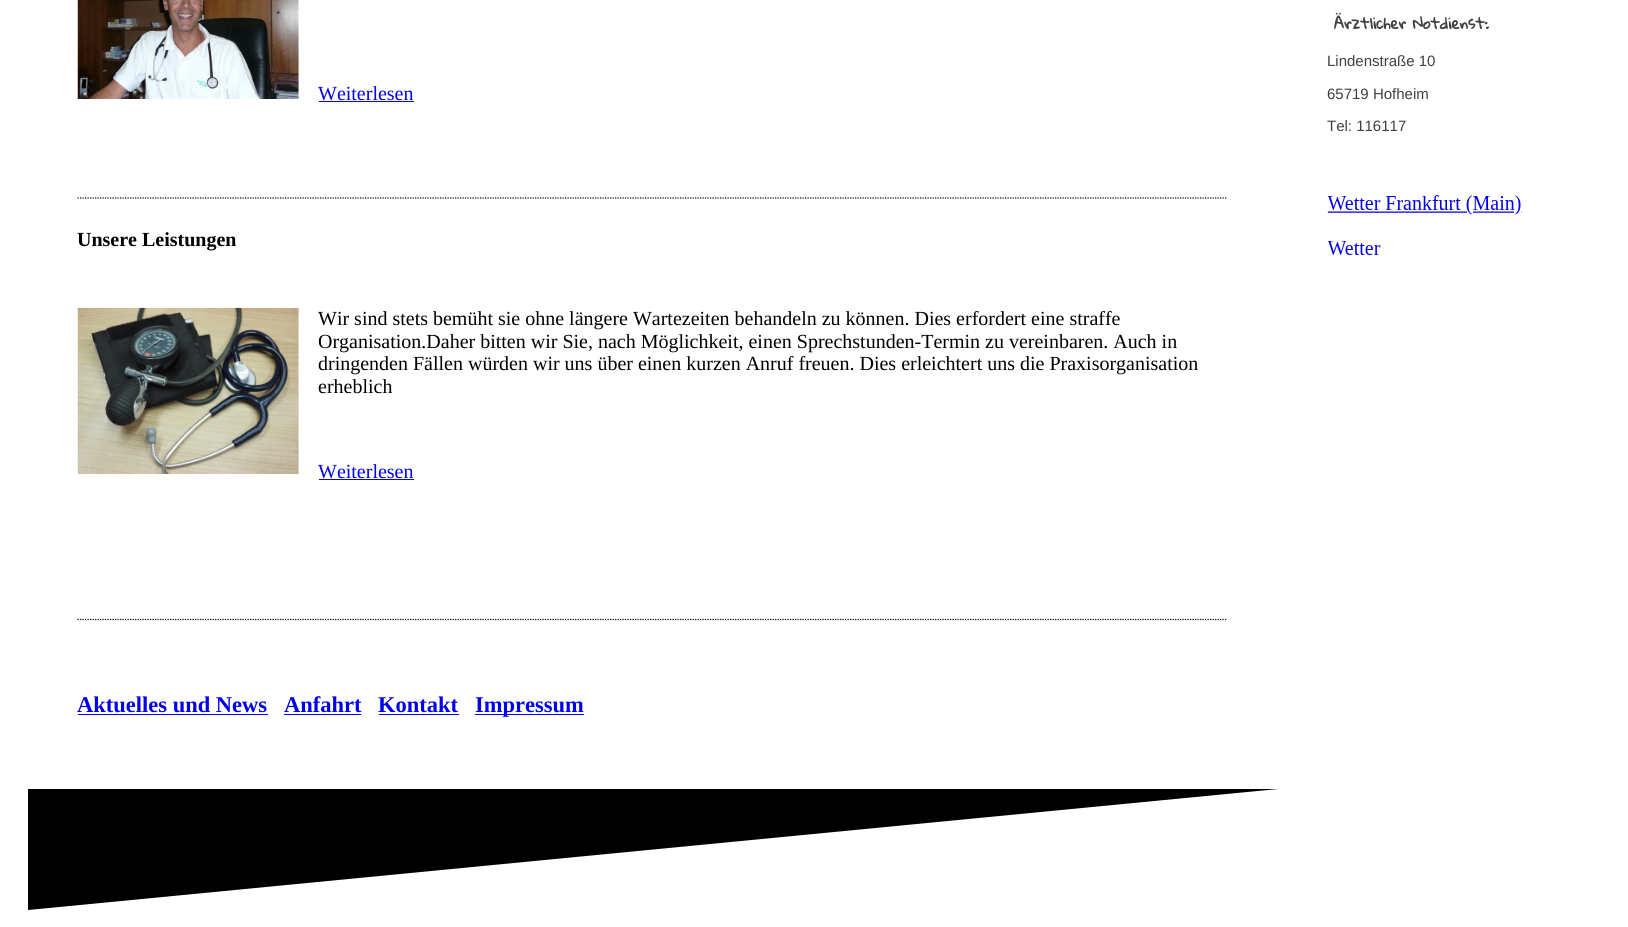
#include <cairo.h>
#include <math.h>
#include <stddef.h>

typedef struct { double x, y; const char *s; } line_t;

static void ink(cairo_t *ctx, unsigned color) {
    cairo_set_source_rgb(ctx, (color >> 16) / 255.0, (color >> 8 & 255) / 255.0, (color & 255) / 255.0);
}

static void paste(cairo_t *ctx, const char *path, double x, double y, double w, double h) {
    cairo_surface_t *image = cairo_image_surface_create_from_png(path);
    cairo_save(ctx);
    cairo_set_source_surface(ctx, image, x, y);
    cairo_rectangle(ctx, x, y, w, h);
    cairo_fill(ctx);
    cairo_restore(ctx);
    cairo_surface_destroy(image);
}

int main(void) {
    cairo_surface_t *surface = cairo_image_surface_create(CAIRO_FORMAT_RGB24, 1628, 927);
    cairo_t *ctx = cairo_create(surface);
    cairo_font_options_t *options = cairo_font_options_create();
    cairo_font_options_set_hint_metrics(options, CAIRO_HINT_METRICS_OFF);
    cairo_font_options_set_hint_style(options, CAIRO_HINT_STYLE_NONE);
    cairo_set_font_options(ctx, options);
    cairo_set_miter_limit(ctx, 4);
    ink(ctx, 0xFFFFFF);
    cairo_paint(ctx);
    cairo_select_font_face(ctx, "Gloria Hallelujah", CAIRO_FONT_SLANT_NORMAL, CAIRO_FONT_WEIGHT_BOLD);
    cairo_set_font_size(ctx, 15);
    ink(ctx, 0x404040);
    cairo_move_to(ctx, 1334, 29);
    cairo_show_text(ctx, "Ärztlicher Notdienst:");
    cairo_select_font_face(ctx, "Liberation Sans", CAIRO_FONT_SLANT_NORMAL, CAIRO_FONT_WEIGHT_NORMAL);
    {
        static const line_t items[] = {
            {1327, 66, "Lindenstraße 10"},
            {1327, 99, "65719 Hofheim"},
            {1327, 131, "Tel: 116117"},
        };
        for (size_t i = 0; i < sizeof items / sizeof *items; i++) {
            cairo_move_to(ctx, items[i].x, items[i].y);
            cairo_show_text(ctx, items[i].s);
        }
    }
    paste(ctx, "media/1.png", 1327, 195, 195, 60);
    paste(ctx, "media/2.png", 77, 0, 222, 99);
    cairo_select_font_face(ctx, "Liberation Serif", CAIRO_FONT_SLANT_NORMAL, CAIRO_FONT_WEIGHT_NORMAL);
    cairo_set_font_size(ctx, 20);
    ink(ctx, 0x0000EE);
    cairo_move_to(ctx, 318, 100);
    cairo_show_text(ctx, "Weiterlesen");
    cairo_rectangle(ctx, 319, 101, 95, 1);
    cairo_fill(ctx);
    cairo_new_path(ctx);
    cairo_move_to(ctx, 77.5, 198);
    cairo_line_to(ctx, 1227.5, 198);
    ink(ctx, 0x000000);
    cairo_set_line_width(ctx, 1.2);
    cairo_set_dash(ctx, (double[]){1.25, 1.25}, 2, 0);
    cairo_stroke(ctx);
    cairo_select_font_face(ctx, "Liberation Serif", CAIRO_FONT_SLANT_NORMAL, CAIRO_FONT_WEIGHT_BOLD);
    cairo_move_to(ctx, 77, 246);
    cairo_show_text(ctx, "Unsere Leistungen");
    paste(ctx, "media/3.png", 77, 307, 222, 167);
    cairo_select_font_face(ctx, "Liberation Serif", CAIRO_FONT_SLANT_NORMAL, CAIRO_FONT_WEIGHT_NORMAL);
    {
        static const line_t items[] = {
            {318, 325, "Wir sind stets bemüht sie ohne längere Wartezeiten behandeln zu können. Dies erfordert eine straffe"},
            {318, 348, "Organisation.Daher bitten wir Sie, nach Möglichkeit, einen Sprechstunden-Termin zu vereinbaren. Auch in"},
            {318, 370, "dringenden Fällen würden wir uns über einen kurzen Anruf freuen. Dies erleichtert uns die Praxisorganisation"},
            {318, 393, "erheblich"},
        };
        for (size_t i = 0; i < sizeof items / sizeof *items; i++) {
            cairo_move_to(ctx, items[i].x, items[i].y);
            cairo_show_text(ctx, items[i].s);
        }
    }
    ink(ctx, 0x0000EE);
    cairo_move_to(ctx, 318, 478);
    cairo_show_text(ctx, "Weiterlesen");
    cairo_rectangle(ctx, 319, 479, 95, 1);
    cairo_fill(ctx);
    cairo_new_path(ctx);
    cairo_move_to(ctx, 77.5, 619.5);
    cairo_line_to(ctx, 1227.5, 619.5);
    ink(ctx, 0x000000);
    cairo_stroke(ctx);
    cairo_select_font_face(ctx, "Liberation Serif", CAIRO_FONT_SLANT_NORMAL, CAIRO_FONT_WEIGHT_BOLD);
    cairo_set_font_size(ctx, 22.5);
    ink(ctx, 0x0000EE);
    cairo_move_to(ctx, 77, 712);
    cairo_show_text(ctx, "Aktuelles und News");
    cairo_rectangle(ctx, 78, 714, 190, 1);
    cairo_fill(ctx);
    cairo_move_to(ctx, 284, 712);
    cairo_show_text(ctx, "Anfahrt");
    cairo_rectangle(ctx, 284, 714, 77, 1);
    cairo_fill(ctx);
    cairo_move_to(ctx, 378, 712);
    cairo_show_text(ctx, "Kontakt");
    cairo_rectangle(ctx, 379, 714, 80, 1);
    cairo_fill(ctx);
    cairo_rectangle(ctx, 475, 714, 109, 1);
    cairo_fill(ctx);
    cairo_move_to(ctx, 475, 712);
    cairo_show_text(ctx, "Impressum");
    ink(ctx, 0x000000);
    cairo_new_path(ctx);
    cairo_move_to(ctx, 28, 910);
    cairo_line_to(ctx, 28, 789);
    cairo_line_to(ctx, 1278, 789);
    cairo_close_path(ctx);
    cairo_fill(ctx);
    cairo_surface_write_to_png(surface, "image.png");
    cairo_font_options_destroy(options);
    cairo_destroy(ctx);
    cairo_surface_destroy(surface);
    return 0;
}
